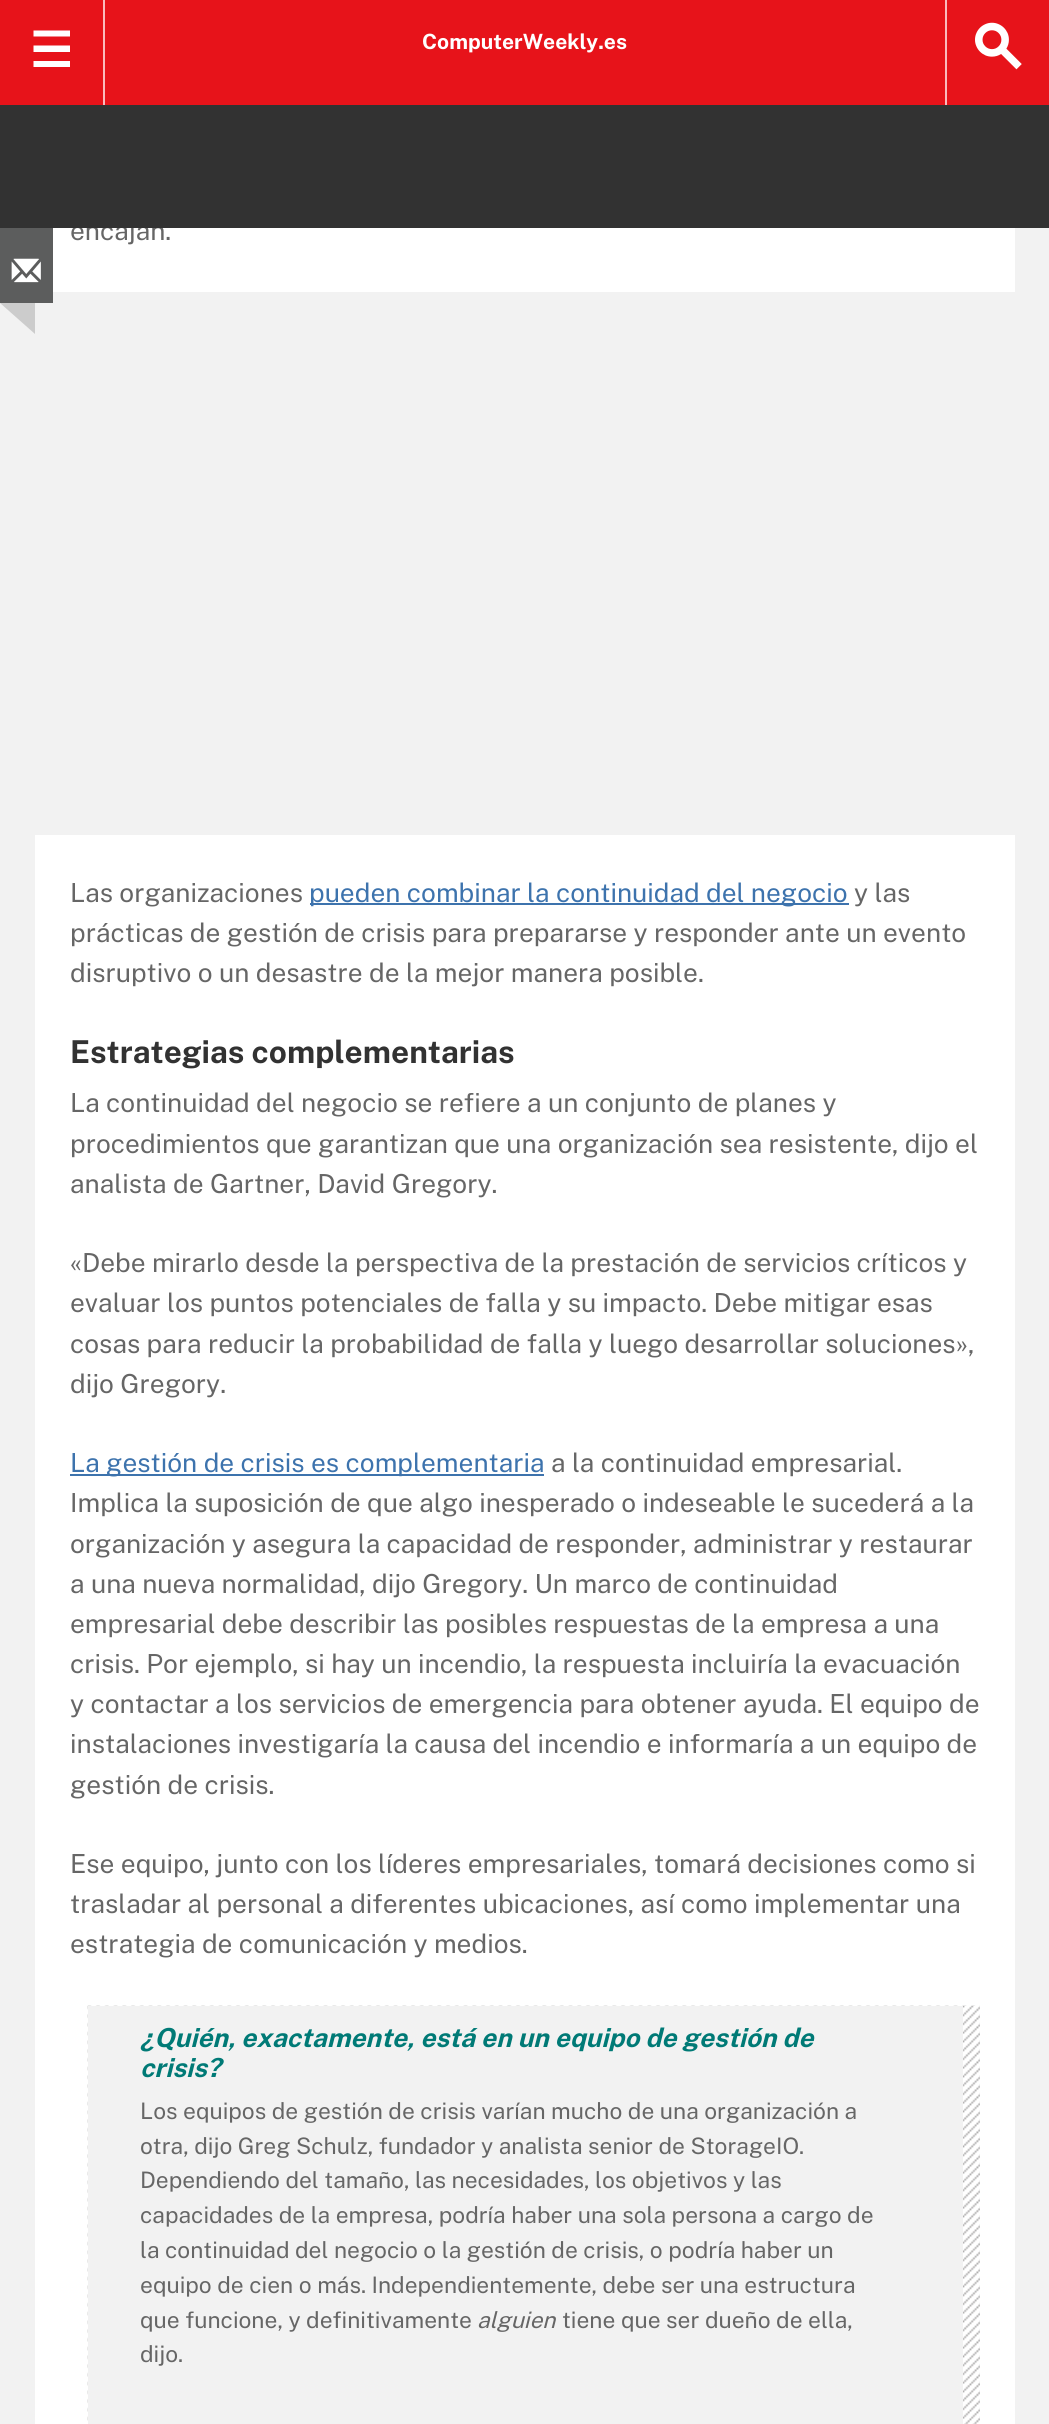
#include <cairo.h>
#include <math.h>
#include <stddef.h>

typedef struct { double x, y; const char *s; } line_t;
typedef struct { double x, y, w, h; unsigned color; } box_t;

static void ink(cairo_t *ctx, unsigned color) {
    cairo_set_source_rgb(ctx, (color >> 16) / 255.0, (color >> 8 & 255) / 255.0, (color & 255) / 255.0);
}

static void paste(cairo_t *ctx, const char *path, double x, double y, double w, double h) {
    cairo_surface_t *image = cairo_image_surface_create_from_png(path);
    cairo_save(ctx);
    cairo_set_source_surface(ctx, image, x, y);
    cairo_rectangle(ctx, x, y, w, h);
    cairo_fill(ctx);
    cairo_restore(ctx);
    cairo_surface_destroy(image);
}

int main(void) {
    cairo_surface_t *surface = cairo_image_surface_create(CAIRO_FORMAT_RGB24, 1049, 2424);
    cairo_t *ctx = cairo_create(surface);
    cairo_font_options_t *options = cairo_font_options_create();
    cairo_font_options_set_hint_metrics(options, CAIRO_HINT_METRICS_OFF);
    cairo_font_options_set_hint_style(options, CAIRO_HINT_STYLE_NONE);
    cairo_set_font_options(ctx, options);
    cairo_set_miter_limit(ctx, 4);
    ink(ctx, 0xF2F2F2);
    cairo_paint(ctx);
    ink(ctx, 0xE7131A);
    cairo_rectangle(ctx, 0, 0, 1049, 105);
    cairo_fill(ctx);
    ink(ctx, 0xFABABD);
    cairo_rectangle(ctx, 103, 0, 2, 105);
    cairo_fill(ctx);
    ink(ctx, 0xFFFFFF);
    cairo_new_path(ctx);
    cairo_move_to(ctx, 33.5, 30.5);
    cairo_line_to(ctx, 70, 30.5);
    cairo_line_to(ctx, 70, 36.5);
    cairo_line_to(ctx, 33.5, 36.5);
    cairo_close_path(ctx);
    cairo_move_to(ctx, 33.5, 45.5);
    cairo_line_to(ctx, 70, 45.5);
    cairo_line_to(ctx, 70, 52);
    cairo_line_to(ctx, 33.5, 52);
    cairo_close_path(ctx);
    cairo_move_to(ctx, 33.5, 61);
    cairo_line_to(ctx, 70, 61);
    cairo_line_to(ctx, 70, 67);
    cairo_line_to(ctx, 33.5, 67);
    cairo_close_path(ctx);
    cairo_fill(ctx);
    cairo_select_font_face(ctx, "Public Sans", CAIRO_FONT_SLANT_NORMAL, CAIRO_FONT_WEIGHT_BOLD);
    cairo_set_font_size(ctx, 21);
    cairo_move_to(ctx, 422, 49);
    cairo_show_text(ctx, "ComputerWeekly.es");
    ink(ctx, 0xFABABD);
    cairo_rectangle(ctx, 945, 0, 2, 105);
    cairo_fill(ctx);
    paste(ctx, "media/1.png", 975, 22, 47, 48);
    ink(ctx, 0xFFFFFF);
    cairo_rectangle(ctx, 35, 228, 980, 2196);
    cairo_fill(ctx);
    cairo_select_font_face(ctx, "Public Sans", CAIRO_FONT_SLANT_NORMAL, CAIRO_FONT_WEIGHT_NORMAL);
    cairo_set_font_size(ctx, 26.25);
    ink(ctx, 0x666666);
    cairo_move_to(ctx, 70, 240);
    cairo_show_text(ctx, "encajan.");
    {
        static const box_t items[] = {
            {0, 105, 1049, 123, 0x323232},
            {35, 292, 980, 543, 0xF2F2F2},
            {0, 228, 53, 75, 0x5C5D5D},
        };
        for (size_t i = 0; i < sizeof items / sizeof *items; i++) {
            ink(ctx, items[i].color);
            cairo_rectangle(ctx, items[i].x, items[i].y, items[i].w, items[i].h);
            cairo_fill(ctx);
        }
    }
    paste(ctx, "media/2.png", 11, 258, 30, 25);
    ink(ctx, 0xCCCCCC);
    cairo_new_path(ctx);
    cairo_move_to(ctx, 35, 303);
    cairo_line_to(ctx, 35, 334);
    cairo_line_to(ctx, 0, 303);
    cairo_close_path(ctx);
    cairo_fill(ctx);
    ink(ctx, 0x666666);
    cairo_move_to(ctx, 70, 902);
    cairo_show_text(ctx, "Las organizaciones");
    ink(ctx, 0x3D73AD);
    cairo_rectangle(ctx, 310, 903, 539, 2);
    cairo_fill(ctx);
    cairo_move_to(ctx, 309, 902);
    cairo_show_text(ctx, "pueden combinar la continuidad del negocio");
    ink(ctx, 0x666666);
    {
        static const line_t items[] = {
            {854, 902, "y las"},
            {70, 942, "prácticas de gestión de crisis para prepararse y responder ante un evento"},
            {70, 982, "disruptivo o un desastre de la mejor manera posible."},
        };
        for (size_t i = 0; i < sizeof items / sizeof *items; i++) {
            cairo_move_to(ctx, items[i].x, items[i].y);
            cairo_show_text(ctx, items[i].s);
        }
    }
    cairo_select_font_face(ctx, "Public Sans", CAIRO_FONT_SLANT_NORMAL, CAIRO_FONT_WEIGHT_BOLD);
    cairo_set_font_size(ctx, 31.5);
    ink(ctx, 0x323232);
    cairo_move_to(ctx, 70, 1063);
    cairo_show_text(ctx, "Estrategias complementarias");
    cairo_select_font_face(ctx, "Public Sans", CAIRO_FONT_SLANT_NORMAL, CAIRO_FONT_WEIGHT_NORMAL);
    cairo_set_font_size(ctx, 26.25);
    ink(ctx, 0x666666);
    {
        static const line_t items[] = {
            {70, 1112, "La continuidad del negocio se refiere a un conjunto de planes y"},
            {70, 1153, "procedimientos que garantizan que una organización sea resistente, dijo el"},
            {70, 1193, "analista de Gartner, David Gregory."},
            {70, 1272, "«Debe mirarlo desde la perspectiva de la prestación de servicios críticos y"},
            {70, 1312, "evaluar los puntos potenciales de falla y su impacto. Debe mitigar esas"},
            {70, 1353, "cosas para reducir la probabilidad de falla y luego desarrollar soluciones»,"},
            {70, 1393, "dijo Gregory."},
        };
        for (size_t i = 0; i < sizeof items / sizeof *items; i++) {
            cairo_move_to(ctx, items[i].x, items[i].y);
            cairo_show_text(ctx, items[i].s);
        }
    }
    ink(ctx, 0x3D73AD);
    cairo_rectangle(ctx, 70, 1474, 474, 2);
    cairo_fill(ctx);
    cairo_move_to(ctx, 70, 1472);
    cairo_show_text(ctx, "La gestión de crisis es complementaria");
    ink(ctx, 0x666666);
    {
        static const line_t items[] = {
            {551, 1472, "a la continuidad empresarial."},
            {70, 1512, "Implica la suposición de que algo inesperado o indeseable le sucederá a la"},
            {70, 1553, "organización y asegura la capacidad de responder, administrar y restaurar"},
            {70, 1593, "a una nueva normalidad, dijo Gregory. Un marco de continuidad"},
            {70, 1633, "empresarial debe describir las posibles respuestas de la empresa a una"},
            {70, 1673, "crisis. Por ejemplo, si hay un incendio, la respuesta incluiría la evacuación"},
            {70, 1713, "y contactar a los servicios de emergencia para obtener ayuda. El equipo de"},
            {70, 1753, "instalaciones investigaría la causa del incendio e informaría a un equipo de"},
            {70, 1794, "gestión de crisis."},
            {70, 1873, "Ese equipo, junto con los líderes empresariales, tomará decisiones como si"},
            {70, 1913, "trasladar al personal a diferentes ubicaciones, así como implementar una"},
            {70, 1953, "estrategia de comunicación y medios."},
        };
        for (size_t i = 0; i < sizeof items / sizeof *items; i++) {
            cairo_move_to(ctx, items[i].x, items[i].y);
            cairo_show_text(ctx, items[i].s);
        }
    }
    paste(ctx, "media/3.png", 87, 2005, 893, 419);
    ink(ctx, 0xF2F2F2);
    cairo_rectangle(ctx, 88, 2006, 875, 418);
    cairo_fill(ctx);
    cairo_select_font_face(ctx, "Public Sans", CAIRO_FONT_SLANT_ITALIC, CAIRO_FONT_WEIGHT_BOLD);
    ink(ctx, 0x007A76);
    cairo_move_to(ctx, 140, 2047);
    cairo_show_text(ctx, "¿Quién, exactamente, está en un equipo de gestión de");
    cairo_move_to(ctx, 140, 2077);
    cairo_show_text(ctx, "crisis?");
    cairo_select_font_face(ctx, "Public Sans", CAIRO_FONT_SLANT_NORMAL, CAIRO_FONT_WEIGHT_NORMAL);
    cairo_set_font_size(ctx, 22.75);
    ink(ctx, 0x666666);
    {
        static const line_t items[] = {
            {140, 2119, "Los equipos de gestión de crisis varían mucho de una organización a"},
            {140, 2154, "otra, dijo Greg Schulz, fundador y analista senior de StorageIO."},
            {140, 2188, "Dependiendo del tamaño, las necesidades, los objetivos y las"},
            {140, 2223, "capacidades de la empresa, podría haber una sola persona a cargo de"},
            {140, 2258, "la continuidad del negocio o la gestión de crisis, o podría haber un"},
            {140, 2293, "equipo de cien o más. Independientemente, debe ser una estructura"},
            {140, 2328, "que funcione, y definitivamente"},
        };
        for (size_t i = 0; i < sizeof items / sizeof *items; i++) {
            cairo_move_to(ctx, items[i].x, items[i].y);
            cairo_show_text(ctx, items[i].s);
        }
    }
    cairo_select_font_face(ctx, "Public Sans", CAIRO_FONT_SLANT_ITALIC, CAIRO_FONT_WEIGHT_NORMAL);
    cairo_move_to(ctx, 477, 2328);
    cairo_show_text(ctx, "alguien");
    cairo_select_font_face(ctx, "Public Sans", CAIRO_FONT_SLANT_NORMAL, CAIRO_FONT_WEIGHT_NORMAL);
    cairo_move_to(ctx, 562, 2328);
    cairo_show_text(ctx, "tiene que ser dueño de ella,");
    cairo_move_to(ctx, 140, 2362);
    cairo_show_text(ctx, "dijo.");
    cairo_surface_write_to_png(surface, "image.png");
    cairo_font_options_destroy(options);
    cairo_destroy(ctx);
    cairo_surface_destroy(surface);
    return 0;
}
